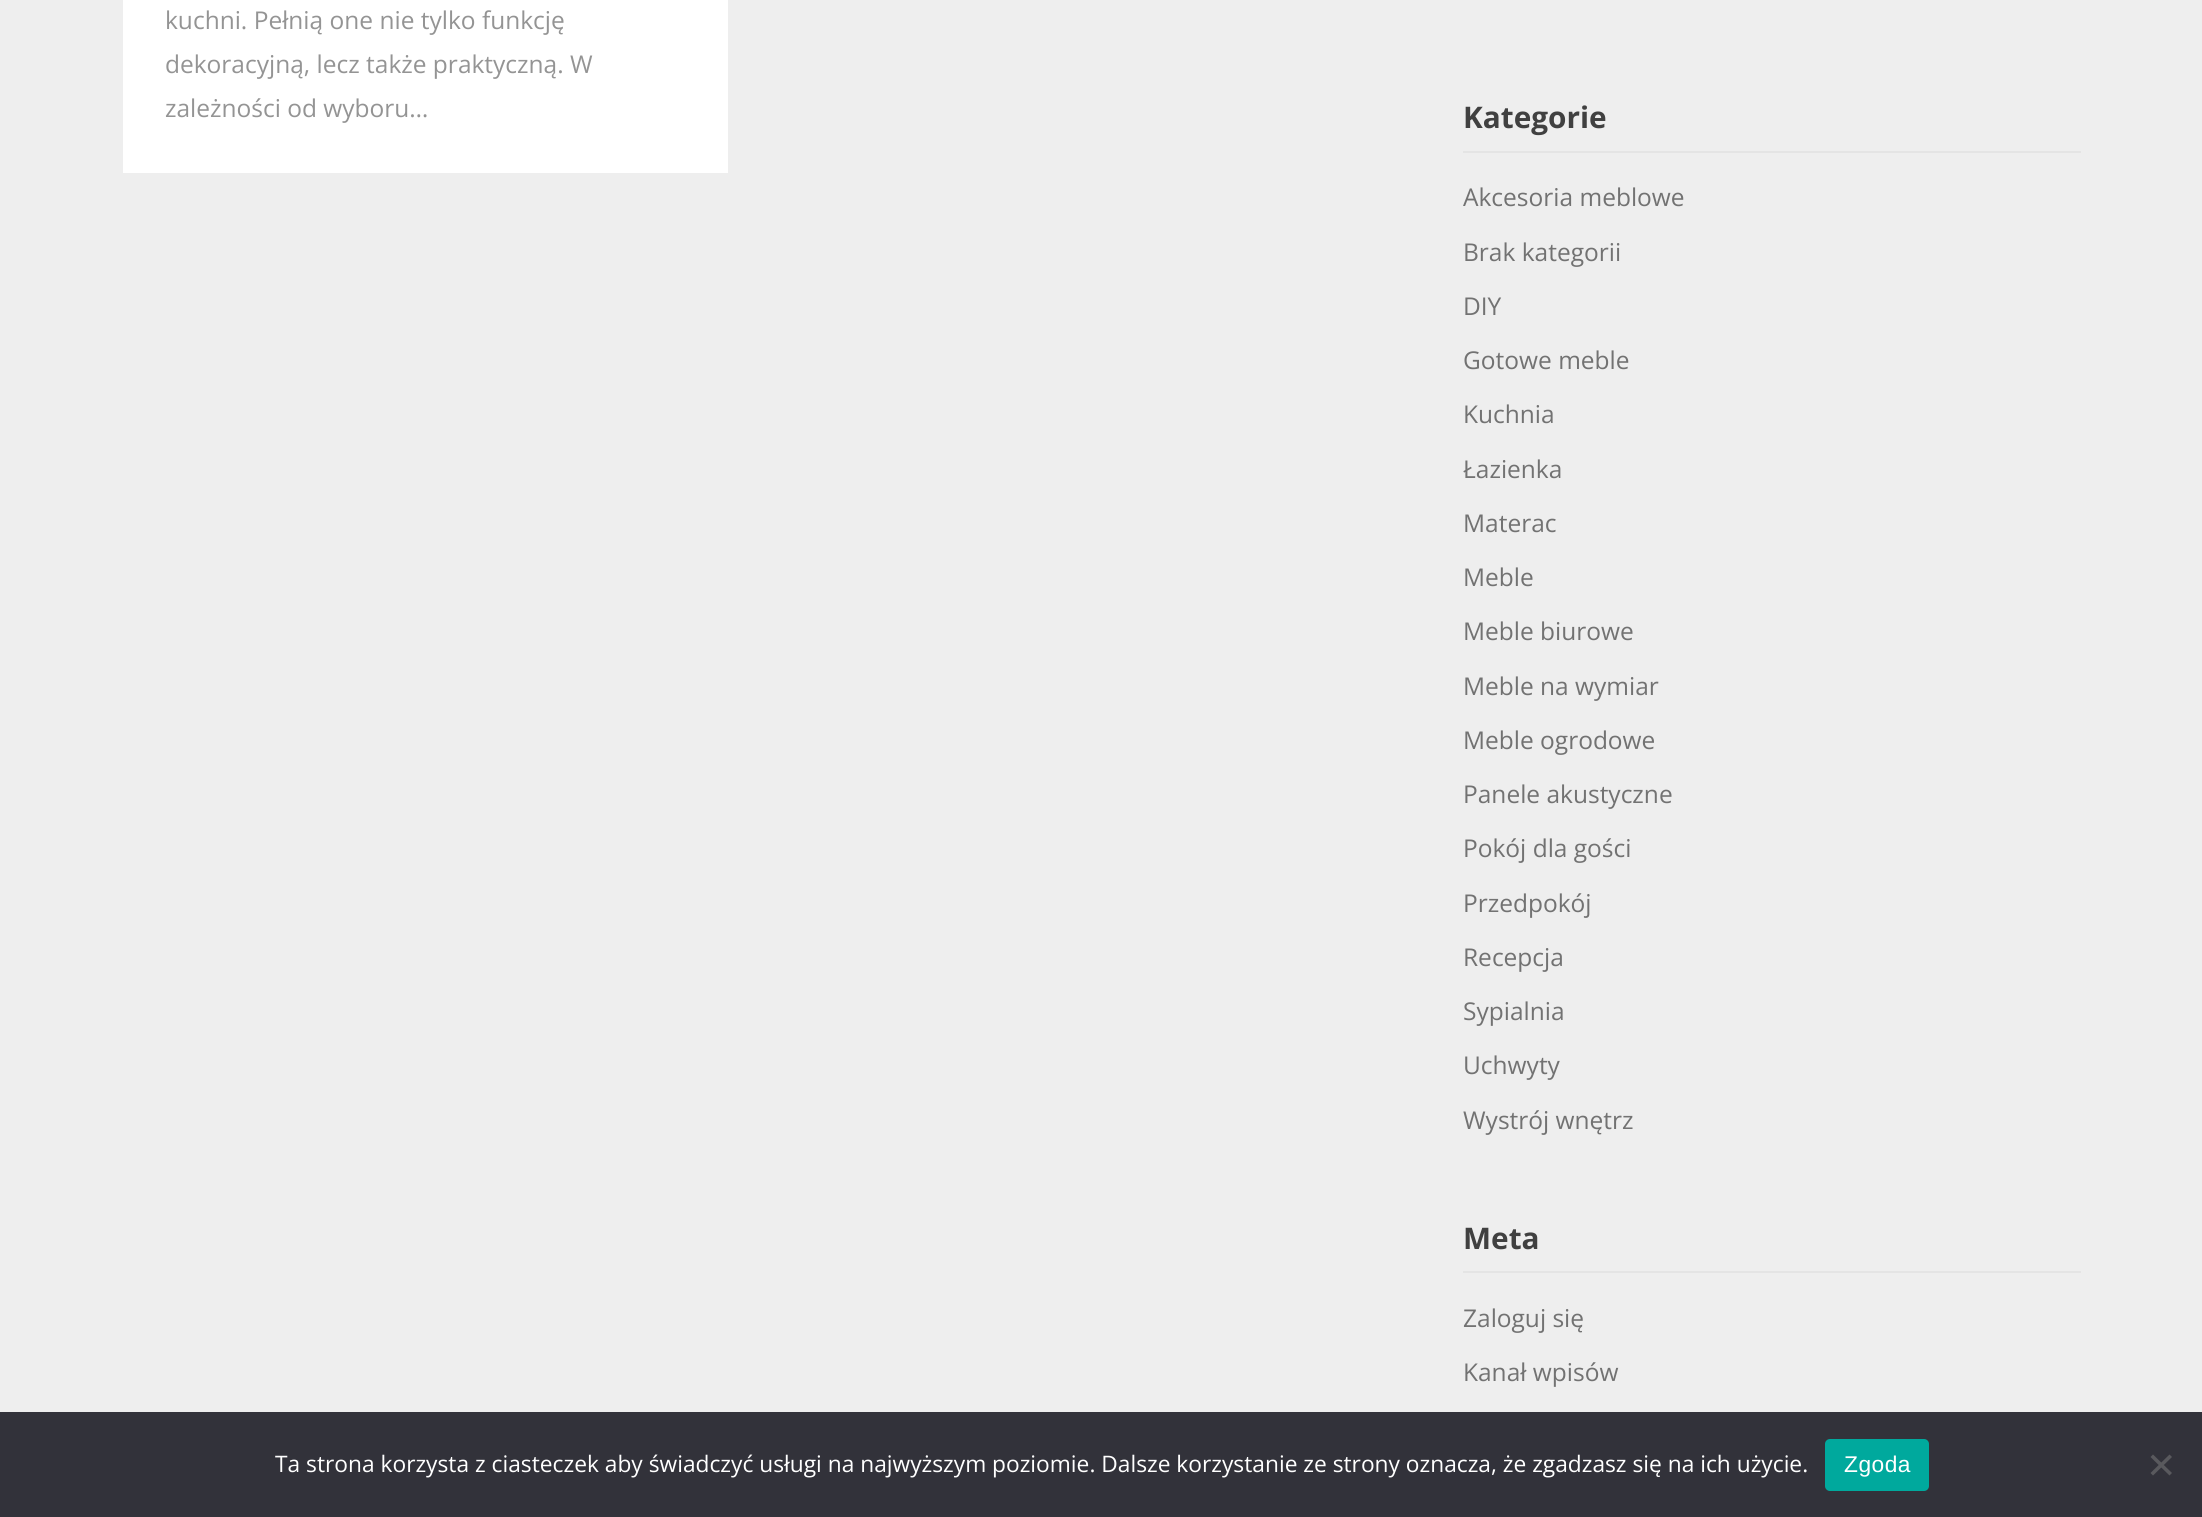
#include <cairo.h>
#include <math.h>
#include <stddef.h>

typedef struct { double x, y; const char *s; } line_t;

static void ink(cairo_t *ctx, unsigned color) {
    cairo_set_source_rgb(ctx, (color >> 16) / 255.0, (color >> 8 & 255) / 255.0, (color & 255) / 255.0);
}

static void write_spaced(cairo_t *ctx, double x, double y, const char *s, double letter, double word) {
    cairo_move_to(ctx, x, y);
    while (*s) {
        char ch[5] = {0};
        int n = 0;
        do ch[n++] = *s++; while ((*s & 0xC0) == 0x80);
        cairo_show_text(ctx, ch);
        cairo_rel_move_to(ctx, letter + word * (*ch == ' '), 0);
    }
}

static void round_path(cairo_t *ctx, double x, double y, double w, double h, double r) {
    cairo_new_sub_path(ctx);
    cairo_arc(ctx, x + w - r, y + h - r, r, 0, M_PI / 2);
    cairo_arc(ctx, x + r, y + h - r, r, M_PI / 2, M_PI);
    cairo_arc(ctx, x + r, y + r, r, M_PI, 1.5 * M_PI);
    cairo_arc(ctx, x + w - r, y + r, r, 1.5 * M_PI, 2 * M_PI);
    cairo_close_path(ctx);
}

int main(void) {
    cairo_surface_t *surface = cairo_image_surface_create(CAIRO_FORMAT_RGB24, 2202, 1517);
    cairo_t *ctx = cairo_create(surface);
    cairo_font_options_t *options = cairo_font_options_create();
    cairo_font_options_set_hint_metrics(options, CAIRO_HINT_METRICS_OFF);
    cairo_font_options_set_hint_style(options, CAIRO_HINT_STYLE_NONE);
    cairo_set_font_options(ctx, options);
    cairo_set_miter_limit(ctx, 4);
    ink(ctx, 0xEEEEEE);
    cairo_paint(ctx);
    ink(ctx, 0xFFFFFF);
    cairo_rectangle(ctx, 123, 0, 605, 173);
    cairo_fill(ctx);
    cairo_select_font_face(ctx, "Open Sans", CAIRO_FONT_SLANT_NORMAL, CAIRO_FONT_WEIGHT_NORMAL);
    cairo_set_font_size(ctx, 24.5);
    ink(ctx, 0x949494);
    {
        static const line_t items[] = {
            {165, 29, "kuchni. Pełnią one nie tylko funkcję"},
            {165, 73, "dekoracyjną, lecz także praktyczną. W"},
            {165, 117, "zależności od wyboru…"},
        };
        for (size_t i = 0; i < sizeof items / sizeof *items; i++) {
            cairo_move_to(ctx, items[i].x, items[i].y);
            cairo_show_text(ctx, items[i].s);
        }
    }
    ink(ctx, 0xE4E4E4);
    cairo_rectangle(ctx, 1463, 151, 618, 2);
    cairo_fill(ctx);
    cairo_select_font_face(ctx, "Open Sans", CAIRO_FONT_SLANT_NORMAL, CAIRO_FONT_WEIGHT_BOLD);
    cairo_set_font_size(ctx, 29.75);
    ink(ctx, 0x404040);
    cairo_move_to(ctx, 1463, 128);
    cairo_show_text(ctx, "Kategorie");
    cairo_select_font_face(ctx, "Open Sans", CAIRO_FONT_SLANT_NORMAL, CAIRO_FONT_WEIGHT_NORMAL);
    cairo_set_font_size(ctx, 24.5);
    ink(ctx, 0x727272);
    {
        static const line_t items[] = {
            {1463, 206, "Akcesoria meblowe"},
            {1463, 261, "Brak kategorii"},
            {1463, 315, "DIY"},
            {1463, 369, "Gotowe meble"},
            {1463, 423, "Kuchnia"},
            {1463, 478, "Łazienka"},
            {1463, 532, "Materac"},
            {1463, 586, "Meble"},
            {1463, 640, "Meble biurowe"},
            {1463, 695, "Meble na wymiar"},
            {1463, 749, "Meble ogrodowe"},
            {1463, 803, "Panele akustyczne"},
            {1463, 857, "Pokój dla gości"},
            {1463, 912, "Przedpokój"},
            {1463, 966, "Recepcja"},
            {1463, 1020, "Sypialnia"},
            {1463, 1074, "Uchwyty"},
            {1463, 1129, "Wystrój wnętrz"},
        };
        for (size_t i = 0; i < sizeof items / sizeof *items; i++) {
            cairo_move_to(ctx, items[i].x, items[i].y);
            cairo_show_text(ctx, items[i].s);
        }
    }
    ink(ctx, 0xE4E4E4);
    cairo_rectangle(ctx, 1463, 1271, 618, 2);
    cairo_fill(ctx);
    cairo_select_font_face(ctx, "Open Sans", CAIRO_FONT_SLANT_NORMAL, CAIRO_FONT_WEIGHT_BOLD);
    cairo_set_font_size(ctx, 29.75);
    ink(ctx, 0x404040);
    cairo_move_to(ctx, 1463, 1249);
    cairo_show_text(ctx, "Meta");
    cairo_select_font_face(ctx, "Open Sans", CAIRO_FONT_SLANT_NORMAL, CAIRO_FONT_WEIGHT_NORMAL);
    cairo_set_font_size(ctx, 24.5);
    ink(ctx, 0x727272);
    cairo_move_to(ctx, 1463, 1327);
    cairo_show_text(ctx, "Zaloguj się");
    cairo_move_to(ctx, 1463, 1381);
    cairo_show_text(ctx, "Kanał wpisów");
    ink(ctx, 0x32323A);
    cairo_rectangle(ctx, 0, 1412, 2202, 105);
    cairo_fill(ctx);
    cairo_set_font_size(ctx, 22.75);
    ink(ctx, 0xFFFFFF);
    cairo_move_to(ctx, 275, 1472);
    cairo_show_text(ctx, "Ta strona korzysta z ciasteczek aby świadczyć usługi na najwyższym poziomie. Dalsze korzystanie ze strony oznacza, że zgadzasz się na ich użycie.");
    ink(ctx, 0x00A99D);
    round_path(ctx, 1825, 1439, 104, 52, 5);
    cairo_fill(ctx);
    cairo_select_font_face(ctx, "Liberation Sans", CAIRO_FONT_SLANT_NORMAL, CAIRO_FONT_WEIGHT_NORMAL);
    ink(ctx, 0xFFFFFF);
    write_spaced(ctx, 1844, 1472, "Zgoda", 0.5, 0);
    ink(ctx, 0x59595D);
    cairo_new_path(ctx);
    cairo_move_to(ctx, 2169.5, 1454.5);
    cairo_line_to(ctx, 2172, 1457);
    cairo_line_to(ctx, 2153, 1475.5);
    cairo_line_to(ctx, 2150.5, 1473);
    cairo_close_path(ctx);
    cairo_fill(ctx);
    cairo_new_path(ctx);
    cairo_move_to(ctx, 2150.5, 1457);
    cairo_line_to(ctx, 2153, 1454.5);
    cairo_line_to(ctx, 2172, 1473);
    cairo_line_to(ctx, 2169.5, 1475.5);
    cairo_close_path(ctx);
    cairo_fill(ctx);
    cairo_surface_write_to_png(surface, "image.png");
    cairo_font_options_destroy(options);
    cairo_destroy(ctx);
    cairo_surface_destroy(surface);
    return 0;
}
